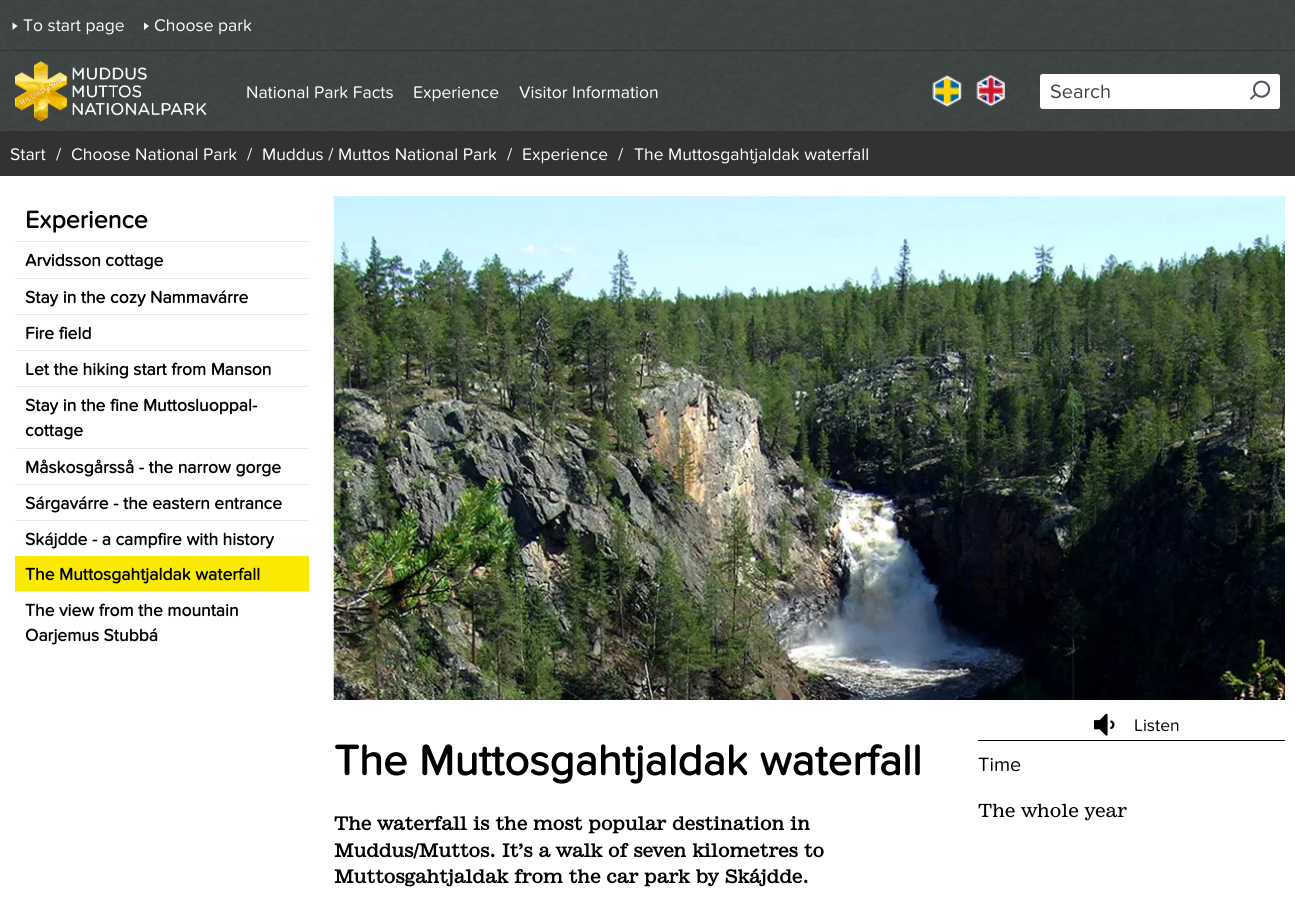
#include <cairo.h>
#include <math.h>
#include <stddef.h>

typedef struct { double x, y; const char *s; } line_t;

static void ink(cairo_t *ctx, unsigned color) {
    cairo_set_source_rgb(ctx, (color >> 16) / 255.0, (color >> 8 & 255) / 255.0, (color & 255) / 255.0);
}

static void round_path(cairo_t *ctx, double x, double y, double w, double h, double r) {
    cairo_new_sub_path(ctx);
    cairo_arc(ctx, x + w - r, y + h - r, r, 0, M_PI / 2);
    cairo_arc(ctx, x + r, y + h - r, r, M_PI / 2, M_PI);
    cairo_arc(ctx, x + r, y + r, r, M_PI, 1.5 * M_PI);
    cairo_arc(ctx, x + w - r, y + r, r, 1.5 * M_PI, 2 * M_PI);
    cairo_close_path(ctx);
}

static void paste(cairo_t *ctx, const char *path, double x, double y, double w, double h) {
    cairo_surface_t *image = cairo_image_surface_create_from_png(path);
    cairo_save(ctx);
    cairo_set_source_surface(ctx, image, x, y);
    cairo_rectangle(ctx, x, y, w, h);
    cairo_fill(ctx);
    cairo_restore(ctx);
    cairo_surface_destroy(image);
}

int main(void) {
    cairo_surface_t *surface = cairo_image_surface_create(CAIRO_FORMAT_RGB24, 1295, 915);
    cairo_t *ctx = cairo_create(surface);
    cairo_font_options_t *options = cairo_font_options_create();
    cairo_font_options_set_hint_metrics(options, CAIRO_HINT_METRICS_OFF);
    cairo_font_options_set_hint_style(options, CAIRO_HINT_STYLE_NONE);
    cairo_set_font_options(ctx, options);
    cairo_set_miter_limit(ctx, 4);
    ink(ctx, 0xFFFFFF);
    cairo_paint(ctx);
    paste(ctx, "media/1.png", 0, 0, 1295, 131);
    ink(ctx, 0xFFFFFF);
    cairo_new_path(ctx);
    cairo_move_to(ctx, 12.5, 30);
    cairo_line_to(ctx, 12.5, 22.5);
    cairo_line_to(ctx, 17.5, 26);
    cairo_close_path(ctx);
    cairo_fill(ctx);
    cairo_select_font_face(ctx, "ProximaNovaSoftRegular", CAIRO_FONT_SLANT_NORMAL, CAIRO_FONT_WEIGHT_NORMAL);
    cairo_set_font_size(ctx, 17.5);
    cairo_move_to(ctx, 23, 31);
    cairo_show_text(ctx, "To start page");
    cairo_new_path(ctx);
    cairo_move_to(ctx, 144, 30);
    cairo_line_to(ctx, 144, 22.5);
    cairo_line_to(ctx, 149, 26);
    cairo_close_path(ctx);
    cairo_fill(ctx);
    cairo_move_to(ctx, 154, 31);
    cairo_show_text(ctx, "Choose park");
    cairo_set_source_rgba(ctx, 0, 0, 0, 0.25);
    cairo_rectangle(ctx, 0, 50, 1295, 1);
    cairo_fill(ctx);
    paste(ctx, "media/2.png", 15, 61, 192, 61);
    ink(ctx, 0xFFFFFF);
    {
        static const line_t items[] = {
            {246, 98, "National Park Facts"},
            {413, 98, "Experience"},
            {519, 98, "Visitor Information"},
        };
        for (size_t i = 0; i < sizeof items / sizeof *items; i++) {
            cairo_move_to(ctx, items[i].x, items[i].y);
            cairo_show_text(ctx, items[i].s);
        }
    }
    paste(ctx, "media/3.png", 932, 75, 30, 32);
    paste(ctx, "media/4.png", 976, 75, 29, 32);
    round_path(ctx, 1040, 74, 240, 35, 2.5);
    cairo_fill(ctx);
    cairo_set_font_size(ctx, 20);
    ink(ctx, 0x3E4444);
    cairo_move_to(ctx, 1050, 98);
    cairo_show_text(ctx, "Search");
    paste(ctx, "media/5.png", 1250, 80, 20, 20);
    ink(ctx, 0x323232);
    cairo_rectangle(ctx, 0, 131, 1295, 45);
    cairo_fill(ctx);
    cairo_set_font_size(ctx, 17.5);
    ink(ctx, 0xFFFFFF);
    {
        static const line_t items[] = {
            {10, 160, "Start"},
            {56, 160, "/"},
            {71, 160, "Choose National Park"},
            {247, 160, "/"},
            {262, 160, "Muddus / Muttos National Park"},
            {507, 160, "/"},
            {522, 160, "Experience"},
            {618, 160, "/"},
            {634, 160, "The Muttosgahtjaldak waterfall"},
        };
        for (size_t i = 0; i < sizeof items / sizeof *items; i++) {
            cairo_move_to(ctx, items[i].x, items[i].y);
            cairo_show_text(ctx, items[i].s);
        }
    }
    cairo_select_font_face(ctx, "ProximaNovaSoftRegular", CAIRO_FONT_SLANT_NORMAL, CAIRO_FONT_WEIGHT_BOLD);
    cairo_set_font_size(ctx, 25);
    ink(ctx, 0x000000);
    cairo_move_to(ctx, 25, 228);
    cairo_show_text(ctx, "Experience");
    ink(ctx, 0xE5E7EB);
    cairo_rectangle(ctx, 15, 241, 294, 1);
    cairo_fill(ctx);
    cairo_set_font_size(ctx, 17.5);
    ink(ctx, 0x000000);
    cairo_move_to(ctx, 25, 266);
    cairo_show_text(ctx, "Arvidsson cottage");
    ink(ctx, 0xE5E7EB);
    cairo_rectangle(ctx, 15, 278, 294, 1);
    cairo_fill(ctx);
    ink(ctx, 0x000000);
    cairo_move_to(ctx, 25, 303);
    cairo_show_text(ctx, "Stay in the cozy Nammavárre");
    ink(ctx, 0xE5E7EB);
    cairo_rectangle(ctx, 15, 314, 294, 1);
    cairo_fill(ctx);
    ink(ctx, 0x000000);
    cairo_move_to(ctx, 25, 339);
    cairo_show_text(ctx, "Fire field");
    ink(ctx, 0xE5E7EB);
    cairo_rectangle(ctx, 15, 350, 294, 1);
    cairo_fill(ctx);
    ink(ctx, 0x000000);
    cairo_move_to(ctx, 25, 375);
    cairo_show_text(ctx, "Let the hiking start from Manson");
    ink(ctx, 0xE5E7EB);
    cairo_rectangle(ctx, 15, 386, 294, 1);
    cairo_fill(ctx);
    ink(ctx, 0x000000);
    cairo_move_to(ctx, 25, 411);
    cairo_show_text(ctx, "Stay in the fine Muttosluoppal-");
    cairo_move_to(ctx, 25, 436);
    cairo_show_text(ctx, "cottage");
    ink(ctx, 0xE5E7EB);
    cairo_rectangle(ctx, 15, 448, 294, 1);
    cairo_fill(ctx);
    ink(ctx, 0x000000);
    cairo_move_to(ctx, 25, 473);
    cairo_show_text(ctx, "Måskosgårsså - the narrow gorge");
    ink(ctx, 0xE5E7EB);
    cairo_rectangle(ctx, 15, 484, 294, 1);
    cairo_fill(ctx);
    ink(ctx, 0x000000);
    cairo_move_to(ctx, 25, 509);
    cairo_show_text(ctx, "Sárgavárre - the eastern entrance");
    ink(ctx, 0xE5E7EB);
    cairo_rectangle(ctx, 15, 520, 294, 1);
    cairo_fill(ctx);
    ink(ctx, 0x000000);
    cairo_move_to(ctx, 25, 545);
    cairo_show_text(ctx, "Skájdde - a campfire with history");
    ink(ctx, 0xFAE900);
    cairo_rectangle(ctx, 15, 556, 294, 35);
    cairo_fill(ctx);
    ink(ctx, 0x000000);
    cairo_move_to(ctx, 25, 580);
    cairo_show_text(ctx, "The Muttosgahtjaldak waterfall");
    ink(ctx, 0xE5E7EB);
    cairo_rectangle(ctx, 15, 591, 294, 1);
    cairo_fill(ctx);
    ink(ctx, 0x000000);
    cairo_move_to(ctx, 25, 616);
    cairo_show_text(ctx, "The view from the mountain");
    cairo_move_to(ctx, 25, 641);
    cairo_show_text(ctx, "Oarjemus Stubbá");
    paste(ctx, "media/6.png", 333, 196, 952, 504);
    cairo_set_font_size(ctx, 43.75);
    cairo_move_to(ctx, 334, 775);
    cairo_show_text(ctx, "The Muttosgahtjaldak waterfall");
    cairo_select_font_face(ctx, "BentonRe", CAIRO_FONT_SLANT_NORMAL, CAIRO_FONT_WEIGHT_BOLD);
    cairo_set_font_size(ctx, 17.5);
    {
        static const line_t items[] = {
            {334, 830, "The waterfall is the most popular destination in"},
            {334, 857, "Muddus/Muttos. It’s a walk of seven kilometres to"},
            {334, 883, "Muttosgahtjaldak from the car park by Skájdde."},
        };
        for (size_t i = 0; i < sizeof items / sizeof *items; i++) {
            cairo_move_to(ctx, items[i].x, items[i].y);
            cairo_show_text(ctx, items[i].s);
        }
    }
    paste(ctx, "media/7.png", 1094, 713, 21, 23);
    cairo_select_font_face(ctx, "ProximaNovaSoftRegular", CAIRO_FONT_SLANT_NORMAL, CAIRO_FONT_WEIGHT_NORMAL);
    cairo_move_to(ctx, 1134, 731);
    cairo_show_text(ctx, "Listen");
    cairo_rectangle(ctx, 978, 740, 307, 1);
    cairo_fill(ctx);
    cairo_set_font_size(ctx, 20);
    cairo_move_to(ctx, 978, 771);
    cairo_show_text(ctx, "Time");
    cairo_select_font_face(ctx, "BentonRe", CAIRO_FONT_SLANT_NORMAL, CAIRO_FONT_WEIGHT_NORMAL);
    cairo_set_font_size(ctx, 17.5);
    cairo_move_to(ctx, 978, 817);
    cairo_show_text(ctx, "The whole year");
    cairo_surface_write_to_png(surface, "image.png");
    cairo_font_options_destroy(options);
    cairo_destroy(ctx);
    cairo_surface_destroy(surface);
    return 0;
}
